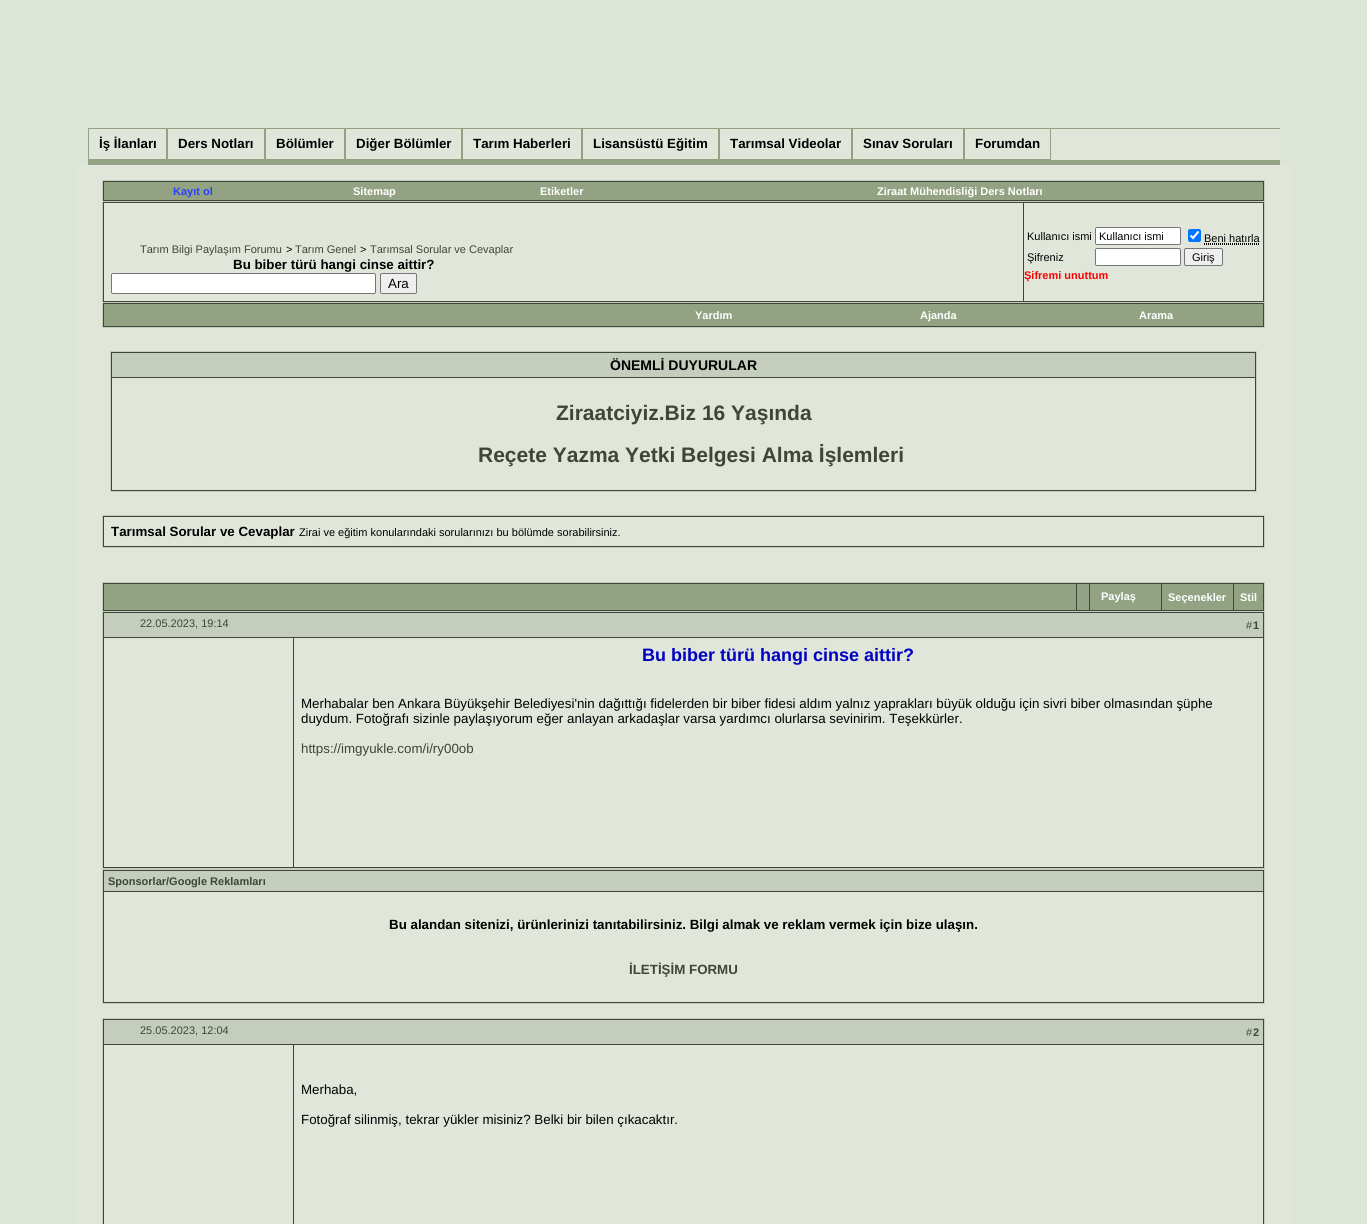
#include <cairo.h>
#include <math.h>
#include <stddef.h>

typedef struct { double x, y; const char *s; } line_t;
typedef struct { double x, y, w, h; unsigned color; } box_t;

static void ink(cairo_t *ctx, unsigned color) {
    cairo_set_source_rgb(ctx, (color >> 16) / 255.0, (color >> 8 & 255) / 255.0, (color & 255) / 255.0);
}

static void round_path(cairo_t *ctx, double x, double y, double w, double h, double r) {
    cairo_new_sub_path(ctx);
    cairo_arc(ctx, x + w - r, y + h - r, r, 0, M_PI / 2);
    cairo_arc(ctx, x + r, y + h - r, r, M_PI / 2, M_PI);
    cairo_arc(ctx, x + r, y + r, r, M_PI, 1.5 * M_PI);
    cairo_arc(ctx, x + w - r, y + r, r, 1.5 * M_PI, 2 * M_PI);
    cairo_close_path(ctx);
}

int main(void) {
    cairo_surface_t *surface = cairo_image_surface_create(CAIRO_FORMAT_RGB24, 1367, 1224);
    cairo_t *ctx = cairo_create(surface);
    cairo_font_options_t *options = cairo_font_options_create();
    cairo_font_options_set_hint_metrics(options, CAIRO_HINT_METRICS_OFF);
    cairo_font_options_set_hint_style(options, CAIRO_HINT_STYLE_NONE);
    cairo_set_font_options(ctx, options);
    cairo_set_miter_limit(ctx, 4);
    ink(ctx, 0xDDE5D6);
    cairo_paint(ctx);
    {
        static const box_t items[] = {
            {88, 128, 1192, 1, 0x92A282},
            {88, 160, 1192, 5, 0x92A282},
            {89, 129, 1191, 30, 0xE1E6DB},
            {166, 129, 1, 31, 0x92A282},
            {88, 159, 79, 1, 0x92A282},
            {88, 129, 1, 31, 0x92A282},
        };
        for (size_t i = 0; i < sizeof items / sizeof *items; i++) {
            ink(ctx, items[i].color);
            cairo_rectangle(ctx, items[i].x, items[i].y, items[i].w, items[i].h);
            cairo_fill(ctx);
        }
    }
    cairo_select_font_face(ctx, "Liberation Sans", CAIRO_FONT_SLANT_NORMAL, CAIRO_FONT_WEIGHT_BOLD);
    cairo_set_font_size(ctx, 13.33);
    ink(ctx, 0x000000);
    cairo_move_to(ctx, 99, 148);
    cairo_show_text(ctx, "İş İlanları");
    {
        static const box_t items[] = {
            {264, 129, 1, 31, 0x92A282},
            {167, 159, 98, 1, 0x92A282},
            {167, 129, 1, 31, 0x92A282},
        };
        for (size_t i = 0; i < sizeof items / sizeof *items; i++) {
            ink(ctx, items[i].color);
            cairo_rectangle(ctx, items[i].x, items[i].y, items[i].w, items[i].h);
            cairo_fill(ctx);
        }
    }
    ink(ctx, 0x000000);
    cairo_move_to(ctx, 178, 148);
    cairo_show_text(ctx, "Ders Notları");
    {
        static const box_t items[] = {
            {344, 129, 1, 31, 0x92A282},
            {265, 159, 80, 1, 0x92A282},
            {265, 129, 1, 31, 0x92A282},
        };
        for (size_t i = 0; i < sizeof items / sizeof *items; i++) {
            ink(ctx, items[i].color);
            cairo_rectangle(ctx, items[i].x, items[i].y, items[i].w, items[i].h);
            cairo_fill(ctx);
        }
    }
    ink(ctx, 0x000000);
    cairo_move_to(ctx, 276, 148);
    cairo_show_text(ctx, "Bölümler");
    {
        static const box_t items[] = {
            {461, 129, 1, 31, 0x92A282},
            {345, 159, 117, 1, 0x92A282},
            {345, 129, 1, 31, 0x92A282},
        };
        for (size_t i = 0; i < sizeof items / sizeof *items; i++) {
            ink(ctx, items[i].color);
            cairo_rectangle(ctx, items[i].x, items[i].y, items[i].w, items[i].h);
            cairo_fill(ctx);
        }
    }
    ink(ctx, 0x000000);
    cairo_move_to(ctx, 356, 148);
    cairo_show_text(ctx, "Diğer Bölümler");
    {
        static const box_t items[] = {
            {581, 129, 1, 31, 0x92A282},
            {462, 159, 120, 1, 0x92A282},
            {462, 129, 1, 31, 0x92A282},
        };
        for (size_t i = 0; i < sizeof items / sizeof *items; i++) {
            ink(ctx, items[i].color);
            cairo_rectangle(ctx, items[i].x, items[i].y, items[i].w, items[i].h);
            cairo_fill(ctx);
        }
    }
    ink(ctx, 0x000000);
    cairo_move_to(ctx, 473, 148);
    cairo_show_text(ctx, "Tarım Haberleri");
    {
        static const box_t items[] = {
            {718, 129, 1, 31, 0x92A282},
            {582, 159, 137, 1, 0x92A282},
            {582, 129, 1, 31, 0x92A282},
        };
        for (size_t i = 0; i < sizeof items / sizeof *items; i++) {
            ink(ctx, items[i].color);
            cairo_rectangle(ctx, items[i].x, items[i].y, items[i].w, items[i].h);
            cairo_fill(ctx);
        }
    }
    ink(ctx, 0x000000);
    cairo_move_to(ctx, 593, 148);
    cairo_show_text(ctx, "Lisansüstü Eğitim");
    {
        static const box_t items[] = {
            {851, 129, 1, 31, 0x92A282},
            {719, 159, 133, 1, 0x92A282},
            {719, 129, 1, 31, 0x92A282},
        };
        for (size_t i = 0; i < sizeof items / sizeof *items; i++) {
            ink(ctx, items[i].color);
            cairo_rectangle(ctx, items[i].x, items[i].y, items[i].w, items[i].h);
            cairo_fill(ctx);
        }
    }
    ink(ctx, 0x000000);
    cairo_move_to(ctx, 730, 148);
    cairo_show_text(ctx, "Tarımsal Videolar");
    {
        static const box_t items[] = {
            {963, 129, 1, 31, 0x92A282},
            {852, 159, 112, 1, 0x92A282},
            {852, 129, 1, 31, 0x92A282},
        };
        for (size_t i = 0; i < sizeof items / sizeof *items; i++) {
            ink(ctx, items[i].color);
            cairo_rectangle(ctx, items[i].x, items[i].y, items[i].w, items[i].h);
            cairo_fill(ctx);
        }
    }
    ink(ctx, 0x000000);
    cairo_move_to(ctx, 863, 148);
    cairo_show_text(ctx, "Sınav Soruları");
    {
        static const box_t items[] = {
            {1050, 129, 1, 31, 0x92A282},
            {964, 159, 87, 1, 0x92A282},
            {964, 129, 1, 31, 0x92A282},
        };
        for (size_t i = 0; i < sizeof items / sizeof *items; i++) {
            ink(ctx, items[i].color);
            cairo_rectangle(ctx, items[i].x, items[i].y, items[i].w, items[i].h);
            cairo_fill(ctx);
        }
    }
    ink(ctx, 0x000000);
    cairo_move_to(ctx, 975, 148);
    cairo_show_text(ctx, "Forumdan");
    {
        static const box_t items[] = {
            {77, 165, 1213, 1059, 0xE1E6DB},
            {103, 181, 1161, 20, 0x3E4637},
            {102, 180, 1163, 1, 0xC5CDBC},
            {1264, 180, 1, 21, 0xC5CDBC},
            {102, 180, 1, 21, 0xC5CDBC},
            {104, 182, 1159, 18, 0x92A282},
        };
        for (size_t i = 0; i < sizeof items / sizeof *items; i++) {
            ink(ctx, items[i].color);
            cairo_rectangle(ctx, items[i].x, items[i].y, items[i].w, items[i].h);
            cairo_fill(ctx);
        }
    }
    cairo_set_font_size(ctx, 11);
    ink(ctx, 0x2B41FD);
    cairo_move_to(ctx, 173, 195);
    cairo_show_text(ctx, "Kayıt ol");
    ink(ctx, 0xFFFFFF);
    {
        static const line_t items[] = {
            {353, 195, "Sitemap"},
            {540, 195, "Etiketler"},
            {877, 195, "Ziraat Mühendisliği Ders Notları"},
        };
        for (size_t i = 0; i < sizeof items / sizeof *items; i++) {
            cairo_move_to(ctx, items[i].x, items[i].y);
            cairo_show_text(ctx, items[i].s);
        }
    }
    ink(ctx, 0x3E4637);
    cairo_rectangle(ctx, 102.5, 201.5, 1162, 101);
    cairo_fill_preserve(ctx);
    ink(ctx, 0xC5CDBC);
    cairo_set_line_width(ctx, 1);
    cairo_stroke(ctx);
    ink(ctx, 0xE1E6DB);
    cairo_rectangle(ctx, 104, 203, 919, 98);
    cairo_fill(ctx);
    cairo_select_font_face(ctx, "Liberation Sans", CAIRO_FONT_SLANT_NORMAL, CAIRO_FONT_WEIGHT_NORMAL);
    ink(ctx, 0x3E4637);
    cairo_move_to(ctx, 140, 253);
    cairo_show_text(ctx, "Tarım Bilgi Paylaşım Forumu");
    ink(ctx, 0x000000);
    cairo_move_to(ctx, 286, 253);
    cairo_show_text(ctx, ">");
    ink(ctx, 0x3E4637);
    cairo_move_to(ctx, 295, 253);
    cairo_show_text(ctx, "Tarım Genel");
    ink(ctx, 0x000000);
    cairo_move_to(ctx, 360, 253);
    cairo_show_text(ctx, ">");
    ink(ctx, 0x3E4637);
    cairo_move_to(ctx, 370, 253);
    cairo_show_text(ctx, "Tarımsal Sorular ve Cevaplar");
    cairo_select_font_face(ctx, "Liberation Sans", CAIRO_FONT_SLANT_NORMAL, CAIRO_FONT_WEIGHT_BOLD);
    cairo_set_font_size(ctx, 13.33);
    ink(ctx, 0x000000);
    cairo_move_to(ctx, 233, 269);
    cairo_show_text(ctx, "Bu biber türü hangi cinse aittir?");
    ink(ctx, 0xFFFFFF);
    round_path(ctx, 111.5, 273.5, 264, 20, 1.5);
    cairo_fill_preserve(ctx);
    ink(ctx, 0x767676);
    cairo_stroke(ctx);
    ink(ctx, 0xEFEFEF);
    round_path(ctx, 380.5, 273.5, 36, 20, 1.5);
    cairo_fill_preserve(ctx);
    ink(ctx, 0x767676);
    cairo_stroke(ctx);
    cairo_select_font_face(ctx, "Liberation Sans", CAIRO_FONT_SLANT_NORMAL, CAIRO_FONT_WEIGHT_NORMAL);
    ink(ctx, 0x000000);
    cairo_move_to(ctx, 388, 288);
    cairo_show_text(ctx, "Ara");
    ink(ctx, 0xE1E6DB);
    cairo_rectangle(ctx, 1024, 203, 239, 98);
    cairo_fill(ctx);
    cairo_set_font_size(ctx, 11);
    ink(ctx, 0x000000);
    cairo_move_to(ctx, 1027, 240);
    cairo_show_text(ctx, "Kullanıcı ismi");
    ink(ctx, 0xFFFFFF);
    round_path(ctx, 1095.5, 227.5, 85, 17, 1.5);
    cairo_fill_preserve(ctx);
    ink(ctx, 0x767676);
    cairo_stroke(ctx);
    ink(ctx, 0x000000);
    cairo_move_to(ctx, 1099, 240);
    cairo_show_text(ctx, "Kullanıcı ismi");
    ink(ctx, 0x0075FF);
    round_path(ctx, 1188, 229, 13, 13, 2);
    cairo_fill(ctx);
    cairo_new_path(ctx);
    cairo_move_to(ctx, 1190.5, 235.5);
    cairo_line_to(ctx, 1193, 238);
    cairo_line_to(ctx, 1198.5, 231.5);
    ink(ctx, 0xFFFFFF);
    cairo_set_line_width(ctx, 2.1);
    cairo_stroke(ctx);
    ink(ctx, 0x000000);
    cairo_move_to(ctx, 1204, 242);
    cairo_show_text(ctx, "Beni hatırla");
    cairo_new_path(ctx);
    cairo_move_to(ctx, 1204, 244.5);
    cairo_line_to(ctx, 1260, 244.5);
    cairo_move_to(ctx, 1204, 243.5);
    cairo_line_to(ctx, 1259.5, 243.5);
    cairo_set_line_width(ctx, 1);
    cairo_set_dash(ctx, (double[]){1, 1}, 2, 0);
    cairo_stroke(ctx);
    cairo_move_to(ctx, 1027, 261);
    cairo_show_text(ctx, "Şifreniz");
    ink(ctx, 0xFFFFFF);
    round_path(ctx, 1095.5, 248.5, 85, 17, 1.5);
    cairo_fill_preserve(ctx);
    ink(ctx, 0x767676);
    cairo_set_dash(ctx, NULL, 0, 0);
    cairo_stroke(ctx);
    ink(ctx, 0xEFEFEF);
    round_path(ctx, 1184.5, 248.5, 38, 17, 1.5);
    cairo_fill_preserve(ctx);
    ink(ctx, 0x767676);
    cairo_stroke(ctx);
    ink(ctx, 0x000000);
    cairo_move_to(ctx, 1192, 261);
    cairo_show_text(ctx, "Giriş");
    cairo_select_font_face(ctx, "Liberation Sans", CAIRO_FONT_SLANT_NORMAL, CAIRO_FONT_WEIGHT_BOLD);
    ink(ctx, 0xFF0000);
    cairo_move_to(ctx, 1024, 279);
    cairo_show_text(ctx, "Şifremi unuttum");
    {
        static const box_t items[] = {
            {103, 303, 1161, 24, 0x3E4637},
            {1264, 303, 1, 25, 0xC5CDBC},
            {102, 327, 1163, 1, 0xC5CDBC},
            {102, 303, 1, 25, 0xC5CDBC},
            {104, 304, 1159, 22, 0x92A282},
        };
        for (size_t i = 0; i < sizeof items / sizeof *items; i++) {
            ink(ctx, items[i].color);
            cairo_rectangle(ctx, items[i].x, items[i].y, items[i].w, items[i].h);
            cairo_fill(ctx);
        }
    }
    ink(ctx, 0xFFFFFF);
    {
        static const line_t items[] = {
            {695, 319, "Yardım"},
            {920, 319, "Ajanda"},
            {1139, 319, "Arama"},
        };
        for (size_t i = 0; i < sizeof items / sizeof *items; i++) {
            cairo_move_to(ctx, items[i].x, items[i].y);
            cairo_show_text(ctx, items[i].s);
        }
    }
    ink(ctx, 0x3E4637);
    cairo_rectangle(ctx, 110.5, 351.5, 1146, 140);
    cairo_fill_preserve(ctx);
    ink(ctx, 0xC5CDBC);
    cairo_stroke(ctx);
    cairo_rectangle(ctx, 112, 353, 1143, 24);
    cairo_fill(ctx);
    cairo_set_font_size(ctx, 14);
    ink(ctx, 0x000000);
    cairo_move_to(ctx, 610, 370);
    cairo_show_text(ctx, "ÖNEMLİ DUYURULAR");
    ink(ctx, 0xE1E6DB);
    cairo_rectangle(ctx, 112, 378, 1143, 112);
    cairo_fill(ctx);
    cairo_set_font_size(ctx, 21);
    ink(ctx, 0x3E4637);
    cairo_move_to(ctx, 556, 420);
    cairo_show_text(ctx, "Ziraatciyiz.Biz 16 Yaşında");
    cairo_move_to(ctx, 478, 462);
    cairo_show_text(ctx, "Reçete Yazma Yetki Belgesi Alma İşlemleri");
    cairo_rectangle(ctx, 102.5, 515.5, 1162, 32);
    cairo_fill_preserve(ctx);
    ink(ctx, 0xC5CDBC);
    cairo_stroke(ctx);
    ink(ctx, 0xE1E6DB);
    cairo_rectangle(ctx, 104, 517, 1159, 29);
    cairo_fill(ctx);
    cairo_set_font_size(ctx, 13.33);
    ink(ctx, 0x000000);
    cairo_move_to(ctx, 111, 536);
    cairo_show_text(ctx, "Tarımsal Sorular ve Cevaplar");
    cairo_select_font_face(ctx, "Liberation Sans", CAIRO_FONT_SLANT_NORMAL, CAIRO_FONT_WEIGHT_NORMAL);
    cairo_set_font_size(ctx, 11);
    cairo_move_to(ctx, 299, 536);
    cairo_show_text(ctx, "Zirai ve eğitim konularındaki sorularınızı bu bölümde sorabilirsiniz.");
    {
        static const box_t items[] = {
            {103, 583, 1161, 28, 0x3E4637},
            {102, 582, 1163, 1, 0xC5CDBC},
            {1264, 582, 1, 29, 0xC5CDBC},
            {102, 582, 1, 29, 0xC5CDBC},
            {104, 584, 972, 26, 0x92A282},
            {1077, 584, 12, 26, 0x92A282},
            {1090, 584, 71, 26, 0x92A282},
        };
        for (size_t i = 0; i < sizeof items / sizeof *items; i++) {
            ink(ctx, items[i].color);
            cairo_rectangle(ctx, items[i].x, items[i].y, items[i].w, items[i].h);
            cairo_fill(ctx);
        }
    }
    cairo_select_font_face(ctx, "Liberation Sans", CAIRO_FONT_SLANT_NORMAL, CAIRO_FONT_WEIGHT_BOLD);
    ink(ctx, 0xFFFFFF);
    cairo_move_to(ctx, 1101, 600);
    cairo_show_text(ctx, "Paylaş");
    ink(ctx, 0x92A282);
    cairo_rectangle(ctx, 1162, 584, 71, 26);
    cairo_fill(ctx);
    ink(ctx, 0xFFFFFF);
    cairo_move_to(ctx, 1168, 601);
    cairo_show_text(ctx, "Seçenekler");
    ink(ctx, 0x92A282);
    cairo_rectangle(ctx, 1234, 584, 29, 26);
    cairo_fill(ctx);
    ink(ctx, 0xFFFFFF);
    cairo_move_to(ctx, 1240, 601);
    cairo_show_text(ctx, "Stil");
    cairo_rectangle(ctx, 102.5, 611.5, 1162, 257);
    ink(ctx, 0xC5CDBC);
    cairo_stroke(ctx);
    {
        static const box_t items[] = {
            {104, 613, 1159, 24, 0xC5CDBC},
            {103, 612, 1161, 1, 0x3E4637},
            {103, 637, 191, 1, 0x3E4637},
            {103, 612, 1, 226, 0x3E4637},
        };
        for (size_t i = 0; i < sizeof items / sizeof *items; i++) {
            ink(ctx, items[i].color);
            cairo_rectangle(ctx, items[i].x, items[i].y, items[i].w, items[i].h);
            cairo_fill(ctx);
        }
    }
    cairo_select_font_face(ctx, "Liberation Sans", CAIRO_FONT_SLANT_NORMAL, CAIRO_FONT_WEIGHT_NORMAL);
    cairo_move_to(ctx, 140, 627);
    cairo_show_text(ctx, "22.05.2023, 19:14");
    cairo_rectangle(ctx, 1263, 612, 1, 256);
    cairo_fill(ctx);
    cairo_rectangle(ctx, 294, 637, 970, 1);
    cairo_fill(ctx);
    cairo_move_to(ctx, 1246, 629);
    cairo_show_text(ctx, "#");
    cairo_select_font_face(ctx, "Liberation Sans", CAIRO_FONT_SLANT_NORMAL, CAIRO_FONT_WEIGHT_BOLD);
    cairo_move_to(ctx, 1253, 629);
    cairo_show_text(ctx, "1");
    cairo_rectangle(ctx, 293, 638, 1, 230);
    cairo_fill(ctx);
    cairo_set_font_size(ctx, 18);
    ink(ctx, 0x0000C0);
    cairo_move_to(ctx, 642, 661);
    cairo_show_text(ctx, "Bu biber türü hangi cinse aittir?");
    cairo_select_font_face(ctx, "Liberation Sans", CAIRO_FONT_SLANT_NORMAL, CAIRO_FONT_WEIGHT_NORMAL);
    cairo_set_font_size(ctx, 13.33);
    ink(ctx, 0x000000);
    cairo_move_to(ctx, 301, 708);
    cairo_show_text(ctx, "Merhabalar ben Ankara Büyükşehir Belediyesi'nin dağıttığı fidelerden bir biber fidesi aldım yalnız yaprakları büyük olduğu için sivri biber olmasından şüphe");
    cairo_move_to(ctx, 301, 723);
    cairo_show_text(ctx, "duydum. Fotoğrafı sizinle paylaşıyorum eğer anlayan arkadaşlar varsa yardımcı olurlarsa sevinirim. Teşekkürler.");
    ink(ctx, 0x3E4637);
    cairo_move_to(ctx, 301, 753);
    cairo_show_text(ctx, "https://imgyukle.com/i/ry00ob");
    cairo_rectangle(ctx, 103, 867, 1161, 1);
    cairo_fill(ctx);
    cairo_rectangle(ctx, 103, 838, 1, 30);
    cairo_fill(ctx);
    cairo_rectangle(ctx, 102.5, 869.5, 1162, 134);
    cairo_fill_preserve(ctx);
    ink(ctx, 0xC5CDBC);
    cairo_stroke(ctx);
    cairo_rectangle(ctx, 104, 871, 1159, 20);
    cairo_fill(ctx);
    cairo_select_font_face(ctx, "Liberation Sans", CAIRO_FONT_SLANT_NORMAL, CAIRO_FONT_WEIGHT_BOLD);
    cairo_set_font_size(ctx, 11);
    ink(ctx, 0x3E4637);
    cairo_move_to(ctx, 108, 885);
    cairo_show_text(ctx, "Sponsorlar/Google Reklamları");
    ink(ctx, 0xE1E6DB);
    cairo_rectangle(ctx, 104, 892, 1159, 110);
    cairo_fill(ctx);
    cairo_set_font_size(ctx, 13.33);
    ink(ctx, 0x000000);
    cairo_move_to(ctx, 389, 929);
    cairo_show_text(ctx, "Bu alandan sitenizi, ürünlerinizi tanıtabilirsiniz. Bilgi almak ve reklam vermek için bize ulaşın.");
    ink(ctx, 0x3E4637);
    cairo_move_to(ctx, 629, 974);
    cairo_show_text(ctx, "İLETİŞİM FORMU");
    cairo_rectangle(ctx, 102.5, 1018.5, 1162, 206);
    ink(ctx, 0xC5CDBC);
    cairo_stroke(ctx);
    {
        static const box_t items[] = {
            {104, 1020, 1159, 24, 0xC5CDBC},
            {103, 1019, 1161, 1, 0x3E4637},
            {103, 1044, 191, 1, 0x3E4637},
            {103, 1019, 1, 205, 0x3E4637},
        };
        for (size_t i = 0; i < sizeof items / sizeof *items; i++) {
            ink(ctx, items[i].color);
            cairo_rectangle(ctx, items[i].x, items[i].y, items[i].w, items[i].h);
            cairo_fill(ctx);
        }
    }
    cairo_select_font_face(ctx, "Liberation Sans", CAIRO_FONT_SLANT_NORMAL, CAIRO_FONT_WEIGHT_NORMAL);
    cairo_set_font_size(ctx, 11);
    cairo_move_to(ctx, 140, 1034);
    cairo_show_text(ctx, "25.05.2023, 12:04");
    cairo_rectangle(ctx, 1263, 1019, 1, 205);
    cairo_fill(ctx);
    cairo_rectangle(ctx, 294, 1044, 970, 1);
    cairo_fill(ctx);
    cairo_move_to(ctx, 1246, 1036);
    cairo_show_text(ctx, "#");
    cairo_select_font_face(ctx, "Liberation Sans", CAIRO_FONT_SLANT_NORMAL, CAIRO_FONT_WEIGHT_BOLD);
    cairo_move_to(ctx, 1253, 1036);
    cairo_show_text(ctx, "2");
    cairo_rectangle(ctx, 293, 1045, 1, 179);
    cairo_fill(ctx);
    cairo_select_font_face(ctx, "Liberation Sans", CAIRO_FONT_SLANT_NORMAL, CAIRO_FONT_WEIGHT_NORMAL);
    cairo_set_font_size(ctx, 13.33);
    ink(ctx, 0x000000);
    cairo_move_to(ctx, 301, 1094);
    cairo_show_text(ctx, "Merhaba,");
    cairo_move_to(ctx, 301, 1124);
    cairo_show_text(ctx, "Fotoğraf silinmiş, tekrar yükler misiniz? Belki bir bilen çıkacaktır.");
    cairo_surface_write_to_png(surface, "image.png");
    cairo_font_options_destroy(options);
    cairo_destroy(ctx);
    cairo_surface_destroy(surface);
    return 0;
}
